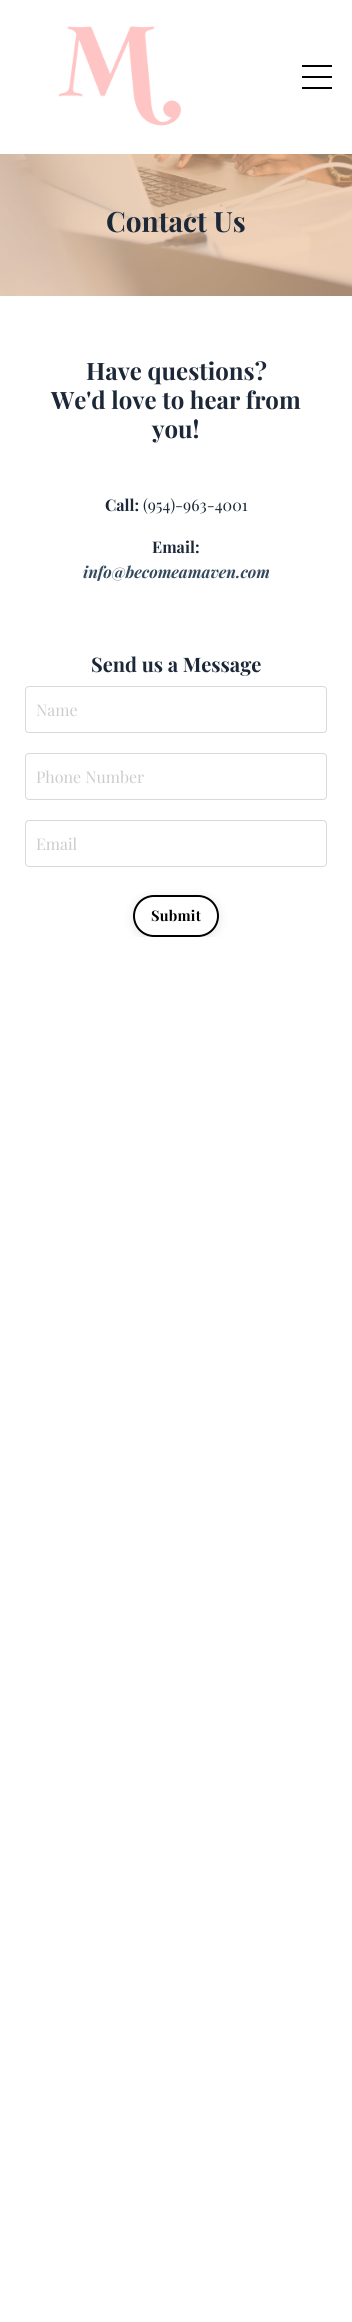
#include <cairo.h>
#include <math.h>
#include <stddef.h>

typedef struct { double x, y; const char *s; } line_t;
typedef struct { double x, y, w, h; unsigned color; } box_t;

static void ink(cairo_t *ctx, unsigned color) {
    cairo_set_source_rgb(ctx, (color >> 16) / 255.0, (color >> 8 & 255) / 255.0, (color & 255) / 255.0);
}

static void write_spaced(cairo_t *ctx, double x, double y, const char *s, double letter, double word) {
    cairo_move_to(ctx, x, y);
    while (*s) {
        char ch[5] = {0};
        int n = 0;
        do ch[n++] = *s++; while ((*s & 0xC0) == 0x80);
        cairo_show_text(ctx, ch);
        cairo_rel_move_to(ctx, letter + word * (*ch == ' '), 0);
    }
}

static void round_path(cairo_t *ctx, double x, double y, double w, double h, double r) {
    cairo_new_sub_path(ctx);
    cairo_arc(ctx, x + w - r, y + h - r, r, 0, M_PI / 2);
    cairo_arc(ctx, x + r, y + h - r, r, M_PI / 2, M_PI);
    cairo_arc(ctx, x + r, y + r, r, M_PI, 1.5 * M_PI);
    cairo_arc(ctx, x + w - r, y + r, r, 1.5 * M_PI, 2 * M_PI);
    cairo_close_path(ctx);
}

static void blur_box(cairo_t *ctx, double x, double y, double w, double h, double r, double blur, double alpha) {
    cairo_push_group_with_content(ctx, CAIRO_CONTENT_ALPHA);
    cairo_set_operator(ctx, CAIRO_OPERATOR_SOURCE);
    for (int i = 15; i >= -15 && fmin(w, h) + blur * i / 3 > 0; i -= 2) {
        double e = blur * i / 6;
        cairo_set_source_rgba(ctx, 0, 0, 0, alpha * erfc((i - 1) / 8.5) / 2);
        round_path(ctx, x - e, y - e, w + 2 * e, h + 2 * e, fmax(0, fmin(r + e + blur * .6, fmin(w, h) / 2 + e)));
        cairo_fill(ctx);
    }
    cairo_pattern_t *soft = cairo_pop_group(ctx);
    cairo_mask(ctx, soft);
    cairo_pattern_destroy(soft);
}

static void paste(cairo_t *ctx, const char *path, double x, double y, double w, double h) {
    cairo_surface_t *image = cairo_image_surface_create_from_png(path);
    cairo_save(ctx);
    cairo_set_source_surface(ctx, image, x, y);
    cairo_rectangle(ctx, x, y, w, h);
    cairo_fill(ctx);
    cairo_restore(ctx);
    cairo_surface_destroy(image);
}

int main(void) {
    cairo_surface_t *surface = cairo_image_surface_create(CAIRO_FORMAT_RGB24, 352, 2322);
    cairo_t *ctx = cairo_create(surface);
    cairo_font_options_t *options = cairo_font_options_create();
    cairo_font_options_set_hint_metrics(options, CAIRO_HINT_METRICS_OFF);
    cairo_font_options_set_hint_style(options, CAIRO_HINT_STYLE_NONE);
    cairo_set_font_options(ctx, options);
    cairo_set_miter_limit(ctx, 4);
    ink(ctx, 0xFFFFFF);
    cairo_paint(ctx);
    paste(ctx, "media/1.png", 58, 26, 123, 100);
    {
        static const box_t items[] = {
            {302, 65, 30, 2, 0x000000},
            {302, 76, 30, 2, 0x000000},
            {302, 87, 30, 2, 0x000000},
        };
        for (size_t i = 0; i < sizeof items / sizeof *items; i++) {
            ink(ctx, items[i].color);
            cairo_rectangle(ctx, items[i].x, items[i].y, items[i].w, items[i].h);
            cairo_fill(ctx);
        }
    }
    paste(ctx, "media/2.png", 0, 154, 352, 142);
    cairo_select_font_face(ctx, "Playfair Display", CAIRO_FONT_SLANT_NORMAL, CAIRO_FONT_WEIGHT_BOLD);
    cairo_set_font_size(ctx, 28);
    ink(ctx, 0x1C2838);
    cairo_move_to(ctx, 106, 232);
    cairo_show_text(ctx, "Contact Us");
    cairo_set_font_size(ctx, 24);
    {
        static const line_t items[] = {
            {86, 380, "Have questions?"},
            {51, 409, "We'd love to hear from"},
            {152, 438, "you!"},
        };
        for (size_t i = 0; i < sizeof items / sizeof *items; i++) {
            cairo_move_to(ctx, items[i].x, items[i].y);
            cairo_show_text(ctx, items[i].s);
        }
    }
    cairo_set_font_size(ctx, 16);
    cairo_move_to(ctx, 105, 511);
    cairo_show_text(ctx, "Call:");
    cairo_select_font_face(ctx, "Playfair Display", CAIRO_FONT_SLANT_NORMAL, CAIRO_FONT_WEIGHT_NORMAL);
    cairo_move_to(ctx, 143, 511);
    cairo_show_text(ctx, "(954)-963-4001");
    cairo_select_font_face(ctx, "Playfair Display", CAIRO_FONT_SLANT_NORMAL, CAIRO_FONT_WEIGHT_BOLD);
    cairo_move_to(ctx, 152, 553);
    cairo_show_text(ctx, "Email:");
    cairo_select_font_face(ctx, "Playfair Display", CAIRO_FONT_SLANT_ITALIC, CAIRO_FONT_WEIGHT_BOLD);
    ink(ctx, 0x34495E);
    cairo_move_to(ctx, 83, 578);
    cairo_show_text(ctx, "info@becomeamaven.com");
    cairo_select_font_face(ctx, "Playfair Display", CAIRO_FONT_SLANT_NORMAL, CAIRO_FONT_WEIGHT_BOLD);
    cairo_set_font_size(ctx, 20);
    ink(ctx, 0x1C2838);
    cairo_move_to(ctx, 91, 672);
    cairo_show_text(ctx, "Send us a Message");
    round_path(ctx, 25.5, 686.5, 301, 46, 3.5);
    ink(ctx, 0xD9D9D9);
    cairo_set_line_width(ctx, 1);
    cairo_stroke(ctx);
    cairo_select_font_face(ctx, "Playfair Display", CAIRO_FONT_SLANT_NORMAL, CAIRO_FONT_WEIGHT_NORMAL);
    cairo_set_font_size(ctx, 16);
    ink(ctx, 0xCCCCCC);
    cairo_move_to(ctx, 36, 716);
    cairo_show_text(ctx, "Name");
    round_path(ctx, 25.5, 753.5, 301, 46, 3.5);
    ink(ctx, 0xD9D9D9);
    cairo_stroke(ctx);
    ink(ctx, 0xCCCCCC);
    cairo_move_to(ctx, 36, 783);
    cairo_show_text(ctx, "Phone Number");
    round_path(ctx, 25.5, 820.5, 301, 46, 3.5);
    ink(ctx, 0xD9D9D9);
    cairo_stroke(ctx);
    ink(ctx, 0xCCCCCC);
    cairo_move_to(ctx, 36, 850);
    cairo_show_text(ctx, "Email");
    cairo_save(ctx);
    round_path(ctx, 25, 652, 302, 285, 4);
    cairo_clip(ctx);
    cairo_set_fill_rule(ctx, CAIRO_FILL_RULE_EVEN_ODD);
    cairo_new_path(ctx);
    cairo_move_to(ctx, 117, 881);
    cairo_line_to(ctx, 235, 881);
    cairo_line_to(ctx, 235, 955);
    cairo_line_to(ctx, 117, 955);
    cairo_close_path(ctx);
    cairo_move_to(ctx, 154, 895);
    cairo_line_to(ctx, 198, 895);
    cairo_curve_to(ctx, 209.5, 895, 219, 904.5, 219, 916);
    cairo_curve_to(ctx, 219, 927.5, 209.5, 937, 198, 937);
    cairo_line_to(ctx, 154, 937);
    cairo_curve_to(ctx, 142.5, 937, 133, 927.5, 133, 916);
    cairo_curve_to(ctx, 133, 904.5, 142.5, 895, 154, 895);
    cairo_close_path(ctx);
    cairo_clip(ctx);
    ink(ctx, 0x000000);
    blur_box(ctx, 133, 897, 86, 42, 21, 5, 0.1);
    cairo_restore(ctx);
    round_path(ctx, 134, 896, 84, 40, 20);
    ink(ctx, 0x000000);
    cairo_set_line_width(ctx, 2);
    cairo_stroke(ctx);
    cairo_select_font_face(ctx, "Playfair Display", CAIRO_FONT_SLANT_NORMAL, CAIRO_FONT_WEIGHT_BOLD);
    cairo_set_font_size(ctx, 14.5);
    write_spaced(ctx, 151, 921, "Submit", 0.25, 0);
    cairo_surface_write_to_png(surface, "image.png");
    cairo_font_options_destroy(options);
    cairo_destroy(ctx);
    cairo_surface_destroy(surface);
    return 0;
}
